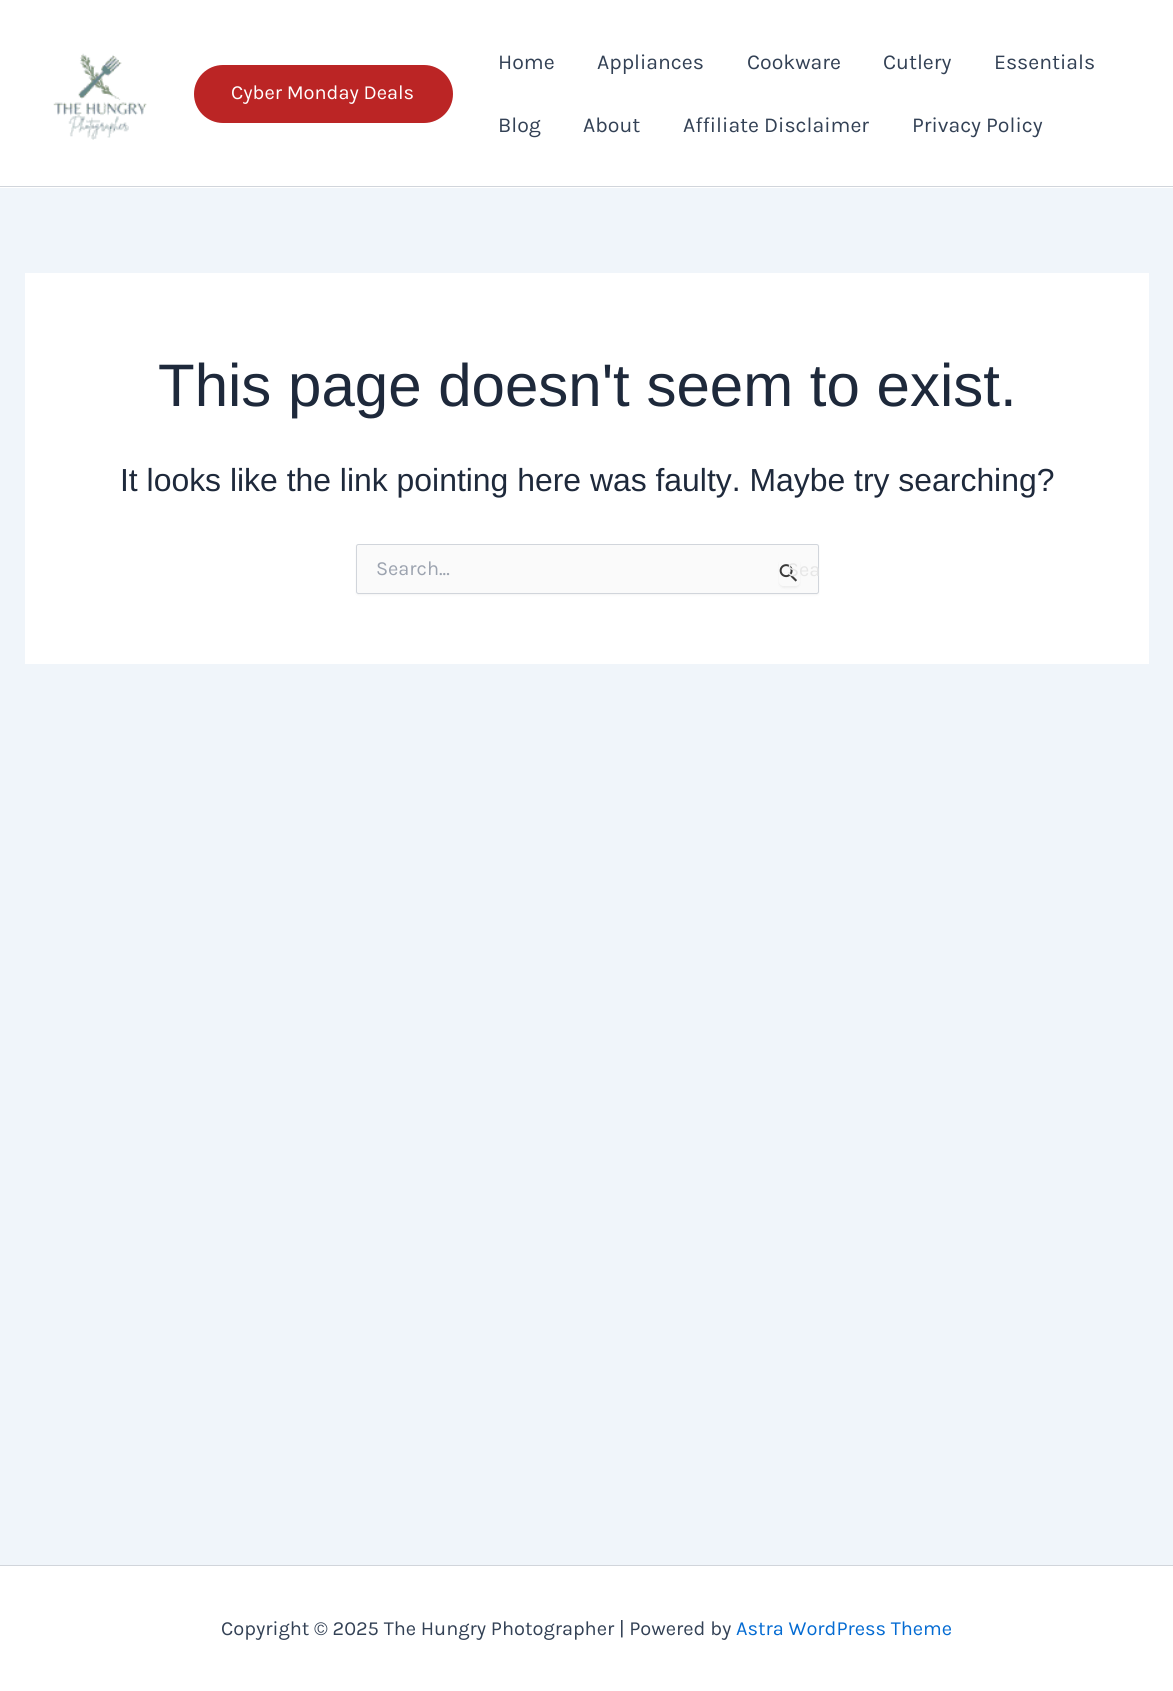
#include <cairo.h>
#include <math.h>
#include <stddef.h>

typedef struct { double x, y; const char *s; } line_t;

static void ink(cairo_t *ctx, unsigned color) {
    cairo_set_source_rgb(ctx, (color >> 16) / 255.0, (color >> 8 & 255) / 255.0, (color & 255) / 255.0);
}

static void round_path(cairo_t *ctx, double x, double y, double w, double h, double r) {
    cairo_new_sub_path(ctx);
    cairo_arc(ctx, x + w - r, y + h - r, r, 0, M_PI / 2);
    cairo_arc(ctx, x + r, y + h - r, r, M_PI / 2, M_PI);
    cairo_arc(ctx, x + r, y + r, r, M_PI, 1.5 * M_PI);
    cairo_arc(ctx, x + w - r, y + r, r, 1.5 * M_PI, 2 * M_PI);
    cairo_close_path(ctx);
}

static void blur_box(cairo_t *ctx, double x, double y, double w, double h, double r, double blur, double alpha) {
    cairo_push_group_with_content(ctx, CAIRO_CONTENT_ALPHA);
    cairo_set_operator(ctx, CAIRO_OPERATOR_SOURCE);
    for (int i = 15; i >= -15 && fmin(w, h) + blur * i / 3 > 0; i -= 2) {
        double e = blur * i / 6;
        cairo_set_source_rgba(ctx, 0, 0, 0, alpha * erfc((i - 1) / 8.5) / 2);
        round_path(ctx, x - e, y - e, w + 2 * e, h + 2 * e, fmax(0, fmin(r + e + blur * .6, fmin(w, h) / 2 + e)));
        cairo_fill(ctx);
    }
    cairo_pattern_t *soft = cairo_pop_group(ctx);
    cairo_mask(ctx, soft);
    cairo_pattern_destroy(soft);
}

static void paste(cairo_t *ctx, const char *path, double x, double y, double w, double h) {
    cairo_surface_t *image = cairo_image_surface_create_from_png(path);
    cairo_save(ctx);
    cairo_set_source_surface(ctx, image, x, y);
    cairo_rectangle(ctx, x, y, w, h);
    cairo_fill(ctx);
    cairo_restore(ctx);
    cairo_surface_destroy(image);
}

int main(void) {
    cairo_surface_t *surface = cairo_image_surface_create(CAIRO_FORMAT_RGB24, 1173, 1691);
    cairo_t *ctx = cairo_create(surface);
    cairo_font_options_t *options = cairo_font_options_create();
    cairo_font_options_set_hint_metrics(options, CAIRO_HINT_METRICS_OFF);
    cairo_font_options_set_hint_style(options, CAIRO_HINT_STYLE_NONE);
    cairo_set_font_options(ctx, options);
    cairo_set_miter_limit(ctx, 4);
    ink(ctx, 0xF0F5FA);
    cairo_paint(ctx);
    ink(ctx, 0xFFFFFF);
    cairo_rectangle(ctx, 0, 0, 1173, 188);
    cairo_fill(ctx);
    ink(ctx, 0xD1D5DB);
    cairo_rectangle(ctx, 0, 186, 1173, 1);
    cairo_fill(ctx);
    paste(ctx, "media/1.png", 53, 53, 94, 87);
    ink(ctx, 0xBB2525);
    round_path(ctx, 194, 65, 259, 58, 29);
    cairo_fill(ctx);
    cairo_select_font_face(ctx, "Karla", CAIRO_FONT_SLANT_NORMAL, CAIRO_FONT_WEIGHT_NORMAL);
    cairo_set_font_size(ctx, 20);
    ink(ctx, 0xFFFFFF);
    cairo_move_to(ctx, 231, 99);
    cairo_show_text(ctx, "Cyber Monday Deals");
    cairo_set_font_size(ctx, 21.25);
    ink(ctx, 0x334155);
    {
        static const line_t items[] = {
            {498, 69, "Home"},
            {597, 69, "Appliances"},
            {747, 69, "Cookware"},
            {883, 69, "Cutlery"},
            {994, 69, "Essentials"},
            {498, 132, "Blog"},
            {583, 132, "About"},
            {683, 132, "Affiliate Disclaimer"},
            {912, 132, "Privacy Policy"},
        };
        for (size_t i = 0; i < sizeof items / sizeof *items; i++) {
            cairo_move_to(ctx, items[i].x, items[i].y);
            cairo_show_text(ctx, items[i].s);
        }
    }
    ink(ctx, 0xFFFFFF);
    cairo_rectangle(ctx, 25, 273, 1124, 391);
    cairo_fill(ctx);
    cairo_select_font_face(ctx, "Liberation Sans", CAIRO_FONT_SLANT_NORMAL, CAIRO_FONT_WEIGHT_NORMAL);
    cairo_set_font_size(ctx, 60);
    ink(ctx, 0x1E293B);
    cairo_move_to(ctx, 158, 406);
    cairo_show_text(ctx, "This page doesn't seem to exist.");
    cairo_set_font_size(ctx, 31.9);
    cairo_move_to(ctx, 120, 491);
    cairo_show_text(ctx, "It looks like the link pointing here was faulty. Maybe try searching?");
    ink(ctx, 0x000000);
    blur_box(ctx, 356, 545, 463, 50, 2.5, 1, 0.05);
    ink(ctx, 0xFAFAFA);
    round_path(ctx, 356.5, 544.5, 462, 49, 2);
    cairo_fill_preserve(ctx);
    ink(ctx, 0xD1D5DB);
    cairo_set_line_width(ctx, 1);
    cairo_stroke(ctx);
    cairo_select_font_face(ctx, "Karla", CAIRO_FONT_SLANT_NORMAL, CAIRO_FONT_WEIGHT_NORMAL);
    cairo_set_font_size(ctx, 20);
    ink(ctx, 0x9CA3AF);
    cairo_move_to(ctx, 376, 575);
    cairo_show_text(ctx, "Search...");
    cairo_save(ctx);
    cairo_set_fill_rule(ctx, CAIRO_FILL_RULE_EVEN_ODD);
    cairo_new_path(ctx);
    cairo_move_to(ctx, 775, 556);
    cairo_line_to(ctx, 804, 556);
    cairo_line_to(ctx, 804, 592);
    cairo_line_to(ctx, 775, 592);
    cairo_close_path(ctx);
    cairo_move_to(ctx, 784, 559);
    cairo_line_to(ctx, 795, 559);
    cairo_curve_to(ctx, 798, 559, 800, 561, 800, 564);
    cairo_line_to(ctx, 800, 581);
    cairo_curve_to(ctx, 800, 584, 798, 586, 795, 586);
    cairo_line_to(ctx, 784, 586);
    cairo_curve_to(ctx, 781, 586, 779, 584, 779, 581);
    cairo_line_to(ctx, 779, 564);
    cairo_curve_to(ctx, 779, 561, 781, 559, 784, 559);
    cairo_close_path(ctx);
    cairo_clip(ctx);
    ink(ctx, 0x000000);
    blur_box(ctx, 779, 560, 21, 28, 5, 1, 0.05);
    cairo_restore(ctx);
    paste(ctx, "media/2.png", 779, 564, 18, 18);
    ink(ctx, 0xE6E6E6);
    cairo_move_to(ctx, 787, 576);
    cairo_show_text(ctx, "Sea");
    ink(ctx, 0xFFFFFF);
    cairo_rectangle(ctx, 0, 1566, 1173, 125);
    cairo_fill(ctx);
    ink(ctx, 0xD1D5DB);
    cairo_rectangle(ctx, 0, 1565, 1173, 1);
    cairo_fill(ctx);
    ink(ctx, 0x334155);
    cairo_move_to(ctx, 221, 1635);
    cairo_show_text(ctx, "Copyright © 2025 The Hungry Photographer | Powered by");
    ink(ctx, 0x046BD2);
    cairo_move_to(ctx, 736, 1635);
    cairo_show_text(ctx, "Astra WordPress Theme");
    cairo_surface_write_to_png(surface, "image.png");
    cairo_font_options_destroy(options);
    cairo_destroy(ctx);
    cairo_surface_destroy(surface);
    return 0;
}
